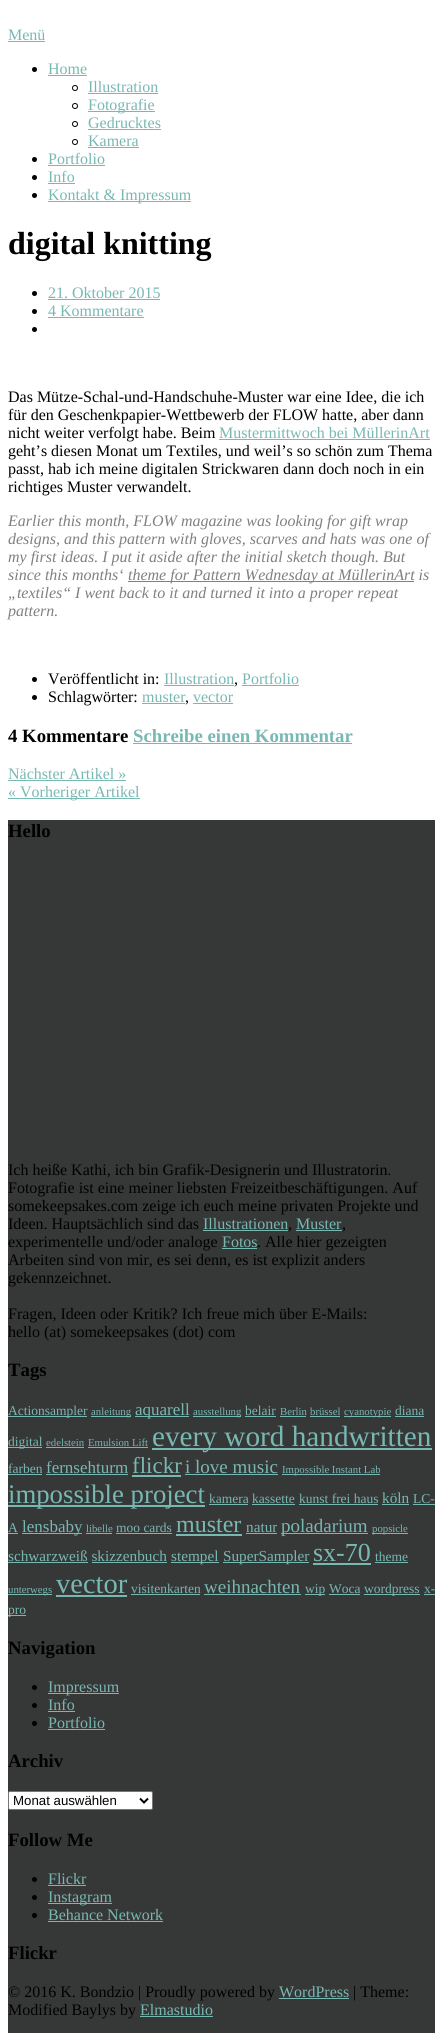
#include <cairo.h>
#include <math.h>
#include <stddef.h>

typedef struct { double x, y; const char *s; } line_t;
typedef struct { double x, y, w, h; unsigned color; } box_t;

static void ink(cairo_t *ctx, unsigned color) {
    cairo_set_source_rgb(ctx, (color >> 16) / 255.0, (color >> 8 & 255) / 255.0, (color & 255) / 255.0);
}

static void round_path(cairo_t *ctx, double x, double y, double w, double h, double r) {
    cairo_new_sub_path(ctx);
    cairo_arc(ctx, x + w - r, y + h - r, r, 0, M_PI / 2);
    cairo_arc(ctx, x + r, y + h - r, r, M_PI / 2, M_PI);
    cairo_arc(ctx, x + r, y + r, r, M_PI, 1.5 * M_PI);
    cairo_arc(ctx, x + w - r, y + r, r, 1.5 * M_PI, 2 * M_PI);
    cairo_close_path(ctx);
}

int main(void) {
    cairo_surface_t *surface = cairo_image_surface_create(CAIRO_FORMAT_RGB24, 443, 2033);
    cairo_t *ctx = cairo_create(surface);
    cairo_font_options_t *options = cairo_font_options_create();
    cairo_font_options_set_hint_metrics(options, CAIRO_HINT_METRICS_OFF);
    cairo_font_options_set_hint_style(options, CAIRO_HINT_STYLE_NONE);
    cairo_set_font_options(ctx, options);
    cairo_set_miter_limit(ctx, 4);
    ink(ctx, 0xFFFFFF);
    cairo_paint(ctx);
    cairo_select_font_face(ctx, "Liberation Serif", CAIRO_FONT_SLANT_NORMAL, CAIRO_FONT_WEIGHT_NORMAL);
    cairo_set_font_size(ctx, 16);
    ink(ctx, 0x78B8B3);
    cairo_move_to(ctx, 8, 40);
    cairo_show_text(ctx, "Menü");
    cairo_rectangle(ctx, 8, 41, 37, 1);
    cairo_fill(ctx);
    ink(ctx, 0x000000);
    cairo_arc(ctx, 34.5, 69.5, 2.5, 0, 2 * M_PI);
    cairo_fill(ctx);
    ink(ctx, 0x78B8B3);
    cairo_move_to(ctx, 48, 74);
    cairo_show_text(ctx, "Home");
    cairo_rectangle(ctx, 48, 75, 39, 1);
    cairo_fill(ctx);
    cairo_arc(ctx, 75, 88, 2.5, 0, 2 * M_PI);
    ink(ctx, 0x000000);
    cairo_set_line_width(ctx, 1);
    cairo_stroke(ctx);
    ink(ctx, 0x78B8B3);
    cairo_move_to(ctx, 88, 92);
    cairo_show_text(ctx, "Illustration");
    cairo_rectangle(ctx, 88, 93, 70, 1);
    cairo_fill(ctx);
    cairo_arc(ctx, 75, 106, 2.5, 0, 2 * M_PI);
    ink(ctx, 0x000000);
    cairo_stroke(ctx);
    ink(ctx, 0x78B8B3);
    cairo_rectangle(ctx, 88, 111, 67, 1);
    cairo_fill(ctx);
    cairo_move_to(ctx, 88, 110);
    cairo_show_text(ctx, "Fotografie");
    cairo_new_path(ctx);
    cairo_arc(ctx, 75, 124, 2.5, 0, 2 * M_PI);
    ink(ctx, 0x000000);
    cairo_stroke(ctx);
    ink(ctx, 0x78B8B3);
    cairo_move_to(ctx, 88, 128);
    cairo_show_text(ctx, "Gedrucktes");
    cairo_rectangle(ctx, 88, 129, 73, 1);
    cairo_fill(ctx);
    cairo_arc(ctx, 75, 142, 2.5, 0, 2 * M_PI);
    ink(ctx, 0x000000);
    cairo_stroke(ctx);
    ink(ctx, 0x78B8B3);
    cairo_move_to(ctx, 88, 146);
    cairo_show_text(ctx, "Kamera");
    cairo_rectangle(ctx, 88, 147, 51, 1);
    cairo_fill(ctx);
    ink(ctx, 0x000000);
    cairo_arc(ctx, 34.5, 159.5, 2.5, 0, 2 * M_PI);
    cairo_fill(ctx);
    ink(ctx, 0x78B8B3);
    cairo_move_to(ctx, 48, 164);
    cairo_show_text(ctx, "Portfolio");
    cairo_rectangle(ctx, 48, 165, 57, 1);
    cairo_fill(ctx);
    ink(ctx, 0x000000);
    cairo_arc(ctx, 34.5, 177.5, 2.5, 0, 2 * M_PI);
    cairo_fill(ctx);
    ink(ctx, 0x78B8B3);
    cairo_move_to(ctx, 48, 182);
    cairo_show_text(ctx, "Info");
    cairo_rectangle(ctx, 48, 183, 27, 1);
    cairo_fill(ctx);
    ink(ctx, 0x000000);
    cairo_arc(ctx, 34.5, 195.5, 2.5, 0, 2 * M_PI);
    cairo_fill(ctx);
    ink(ctx, 0x78B8B3);
    cairo_rectangle(ctx, 48, 201, 143, 1);
    cairo_fill(ctx);
    cairo_move_to(ctx, 48, 200);
    cairo_show_text(ctx, "Kontakt & Impressum");
    cairo_select_font_face(ctx, "Liberation Serif", CAIRO_FONT_SLANT_NORMAL, CAIRO_FONT_WEIGHT_BOLD);
    cairo_set_font_size(ctx, 32);
    ink(ctx, 0x000000);
    cairo_move_to(ctx, 8, 254);
    cairo_show_text(ctx, "digital knitting");
    cairo_new_path(ctx);
    cairo_arc(ctx, 34.5, 293.5, 2.5, 0, 2 * M_PI);
    cairo_fill(ctx);
    cairo_select_font_face(ctx, "Liberation Serif", CAIRO_FONT_SLANT_NORMAL, CAIRO_FONT_WEIGHT_NORMAL);
    cairo_set_font_size(ctx, 16);
    ink(ctx, 0x78B8B3);
    cairo_move_to(ctx, 48, 298);
    cairo_show_text(ctx, "21. Oktober 2015");
    cairo_rectangle(ctx, 48, 299, 112, 1);
    cairo_fill(ctx);
    ink(ctx, 0x000000);
    cairo_arc(ctx, 34.5, 311.5, 2.5, 0, 2 * M_PI);
    cairo_fill(ctx);
    ink(ctx, 0x78B8B3);
    cairo_move_to(ctx, 48, 316);
    cairo_show_text(ctx, "4 Kommentare");
    cairo_rectangle(ctx, 48, 317, 96, 1);
    cairo_fill(ctx);
    ink(ctx, 0x000000);
    cairo_arc(ctx, 34.5, 329.5, 2.5, 0, 2 * M_PI);
    cairo_fill(ctx);
    {
        static const line_t items[] = {
            {8, 402, "Das Mütze-Schal-und-Handschuhe-Muster war eine Idee, die ich"},
            {8, 420, "für den Geschenkpapier-Wettbewerb der FLOW hatte, aber dann"},
            {8, 438, "nicht weiter verfolgt habe. Beim"},
        };
        for (size_t i = 0; i < sizeof items / sizeof *items; i++) {
            cairo_move_to(ctx, items[i].x, items[i].y);
            cairo_show_text(ctx, items[i].s);
        }
    }
    ink(ctx, 0x78B8B3);
    cairo_move_to(ctx, 219, 438);
    cairo_show_text(ctx, "Mustermittwoch bei MüllerinArt");
    cairo_rectangle(ctx, 219, 439, 211, 1);
    cairo_fill(ctx);
    ink(ctx, 0x000000);
    {
        static const line_t items[] = {
            {8, 456, "geht’s diesen Monat um Textiles, und weil’s so schön zum Thema"},
            {8, 474, "passt, hab ich meine digitalen Strickwaren dann doch noch in ein"},
            {8, 492, "richtiges Muster verwandelt."},
        };
        for (size_t i = 0; i < sizeof items / sizeof *items; i++) {
            cairo_move_to(ctx, items[i].x, items[i].y);
            cairo_show_text(ctx, items[i].s);
        }
    }
    cairo_select_font_face(ctx, "Liberation Serif", CAIRO_FONT_SLANT_ITALIC, CAIRO_FONT_WEIGHT_NORMAL);
    ink(ctx, 0x808080);
    {
        static const line_t items[] = {
            {8, 526, "Earlier this month, FLOW magazine was looking for gift wrap"},
            {8, 544, "designs, and this pattern with gloves, scarves and hats was one of"},
            {8, 562, "my first ideas. I put it aside after the initial sketch though. But"},
            {8, 580, "since this months‘"},
        };
        for (size_t i = 0; i < sizeof items / sizeof *items; i++) {
            cairo_move_to(ctx, items[i].x, items[i].y);
            cairo_show_text(ctx, items[i].s);
        }
    }
    cairo_rectangle(ctx, 128, 581, 286, 1);
    cairo_fill(ctx);
    {
        static const line_t items[] = {
            {128, 580, "theme for Pattern Wednesday at MüllerinArt is"},
            {8, 598, "„textiles“ I went back to it and turned it into a proper repeat"},
            {8, 616, "pattern."},
        };
        for (size_t i = 0; i < sizeof items / sizeof *items; i++) {
            cairo_move_to(ctx, items[i].x, items[i].y);
            cairo_show_text(ctx, items[i].s);
        }
    }
    ink(ctx, 0x000000);
    cairo_new_path(ctx);
    cairo_arc(ctx, 34.5, 679.5, 2.5, 0, 2 * M_PI);
    cairo_fill(ctx);
    cairo_select_font_face(ctx, "Liberation Serif", CAIRO_FONT_SLANT_NORMAL, CAIRO_FONT_WEIGHT_NORMAL);
    cairo_move_to(ctx, 48, 684);
    cairo_show_text(ctx, "Veröffentlicht in:");
    ink(ctx, 0x78B8B3);
    cairo_move_to(ctx, 164, 684);
    cairo_show_text(ctx, "Illustration");
    cairo_rectangle(ctx, 164, 685, 70, 1);
    cairo_fill(ctx);
    cairo_move_to(ctx, 242, 684);
    cairo_show_text(ctx, "Portfolio");
    cairo_rectangle(ctx, 242, 685, 57, 1);
    cairo_fill(ctx);
    ink(ctx, 0x000000);
    cairo_move_to(ctx, 234, 684);
    cairo_show_text(ctx, ",");
    cairo_new_path(ctx);
    cairo_arc(ctx, 34.5, 697.5, 2.5, 0, 2 * M_PI);
    cairo_fill(ctx);
    cairo_move_to(ctx, 48, 702);
    cairo_show_text(ctx, "Schlagwörter:");
    ink(ctx, 0x78B8B3);
    cairo_move_to(ctx, 142, 702);
    cairo_show_text(ctx, "muster");
    cairo_rectangle(ctx, 142, 703, 43, 1);
    cairo_fill(ctx);
    cairo_move_to(ctx, 193, 702);
    cairo_show_text(ctx, "vector");
    cairo_rectangle(ctx, 193, 703, 40, 1);
    cairo_fill(ctx);
    ink(ctx, 0x000000);
    cairo_move_to(ctx, 185, 702);
    cairo_show_text(ctx, ",");
    cairo_select_font_face(ctx, "Liberation Serif", CAIRO_FONT_SLANT_NORMAL, CAIRO_FONT_WEIGHT_BOLD);
    cairo_set_font_size(ctx, 18.75);
    cairo_move_to(ctx, 8, 742);
    cairo_show_text(ctx, "4 Kommentare");
    ink(ctx, 0x78B8B3);
    cairo_move_to(ctx, 133, 742);
    cairo_show_text(ctx, "Schreibe einen Kommentar");
    cairo_rectangle(ctx, 133, 743, 219, 1);
    cairo_fill(ctx);
    cairo_select_font_face(ctx, "Liberation Serif", CAIRO_FONT_SLANT_NORMAL, CAIRO_FONT_WEIGHT_NORMAL);
    cairo_set_font_size(ctx, 16);
    cairo_move_to(ctx, 8, 779);
    cairo_show_text(ctx, "Nächster Artikel »");
    cairo_rectangle(ctx, 8, 780, 118, 1);
    cairo_fill(ctx);
    cairo_rectangle(ctx, 8, 798, 132, 1);
    cairo_fill(ctx);
    cairo_move_to(ctx, 8, 797);
    cairo_show_text(ctx, "« Vorheriger Artikel");
    ink(ctx, 0x363737);
    cairo_rectangle(ctx, 8, 820, 427, 1213);
    cairo_fill(ctx);
    cairo_select_font_face(ctx, "Liberation Serif", CAIRO_FONT_SLANT_NORMAL, CAIRO_FONT_WEIGHT_BOLD);
    cairo_set_font_size(ctx, 18.75);
    ink(ctx, 0x000000);
    cairo_move_to(ctx, 8, 837);
    cairo_show_text(ctx, "Hello");
    cairo_select_font_face(ctx, "Liberation Serif", CAIRO_FONT_SLANT_NORMAL, CAIRO_FONT_WEIGHT_NORMAL);
    cairo_set_font_size(ctx, 16);
    {
        static const line_t items[] = {
            {8, 1175, "Ich heiße Kathi, ich bin Grafik-Designerin und Illustratorin."},
            {8, 1193, "Fotografie ist eine meiner liebsten Freizeitbeschäftigungen. Auf"},
            {8, 1211, "somekeepsakes.com zeige ich euch meine privaten Projekte und"},
            {8, 1229, "Ideen. Hauptsächlich sind das"},
        };
        for (size_t i = 0; i < sizeof items / sizeof *items; i++) {
            cairo_move_to(ctx, items[i].x, items[i].y);
            cairo_show_text(ctx, items[i].s);
        }
    }
    ink(ctx, 0x78B8B3);
    cairo_move_to(ctx, 203, 1229);
    cairo_show_text(ctx, "Illustrationen");
    cairo_rectangle(ctx, 203, 1230, 85, 1);
    cairo_fill(ctx);
    ink(ctx, 0x000000);
    cairo_move_to(ctx, 288, 1229);
    cairo_show_text(ctx, ",");
    ink(ctx, 0x78B8B3);
    cairo_move_to(ctx, 296, 1229);
    cairo_show_text(ctx, "Muster");
    cairo_rectangle(ctx, 296, 1230, 46, 1);
    cairo_fill(ctx);
    ink(ctx, 0x000000);
    cairo_move_to(ctx, 342, 1229);
    cairo_show_text(ctx, ",");
    cairo_move_to(ctx, 8, 1247);
    cairo_show_text(ctx, "experimentelle und/oder analoge");
    ink(ctx, 0x78B8B3);
    cairo_move_to(ctx, 222, 1247);
    cairo_show_text(ctx, "Fotos");
    cairo_rectangle(ctx, 222, 1248, 35, 1);
    cairo_fill(ctx);
    ink(ctx, 0x000000);
    {
        static const line_t items[] = {
            {257, 1247, ". Alle hier gezeigten"},
            {8, 1265, "Arbeiten sind von mir, es sei denn, es ist explizit anders"},
            {8, 1283, "gekennzeichnet."},
            {8, 1319, "Fragen, Ideen oder Kritik? Ich freue mich über E-Mails:"},
            {8, 1337, "hello (at) somekeepsakes (dot) com"},
        };
        for (size_t i = 0; i < sizeof items / sizeof *items; i++) {
            cairo_move_to(ctx, items[i].x, items[i].y);
            cairo_show_text(ctx, items[i].s);
        }
    }
    cairo_select_font_face(ctx, "Liberation Serif", CAIRO_FONT_SLANT_NORMAL, CAIRO_FONT_WEIGHT_BOLD);
    cairo_set_font_size(ctx, 18.75);
    cairo_move_to(ctx, 8, 1376);
    cairo_show_text(ctx, "Tags");
    ink(ctx, 0x78B8B3);
    cairo_rectangle(ctx, 8, 1416, 79, 1);
    cairo_fill(ctx);
    cairo_select_font_face(ctx, "Liberation Serif", CAIRO_FONT_SLANT_NORMAL, CAIRO_FONT_WEIGHT_NORMAL);
    cairo_set_font_size(ctx, 13.5);
    cairo_move_to(ctx, 8, 1415);
    cairo_show_text(ctx, "Actionsampler");
    cairo_rectangle(ctx, 91, 1416, 40, 1);
    cairo_fill(ctx);
    cairo_set_font_size(ctx, 10.75);
    cairo_move_to(ctx, 91, 1415);
    cairo_show_text(ctx, "anleitung");
    cairo_rectangle(ctx, 135, 1416, 54, 1);
    cairo_fill(ctx);
    cairo_set_font_size(ctx, 17);
    cairo_move_to(ctx, 135, 1415);
    cairo_show_text(ctx, "aquarell");
    cairo_rectangle(ctx, 193, 1416, 48, 1);
    cairo_fill(ctx);
    cairo_set_font_size(ctx, 10.75);
    cairo_move_to(ctx, 193, 1415);
    cairo_show_text(ctx, "ausstellung");
    cairo_set_font_size(ctx, 13.5);
    cairo_move_to(ctx, 245, 1415);
    cairo_show_text(ctx, "belair");
    cairo_rectangle(ctx, 245, 1416, 31, 1);
    cairo_fill(ctx);
    cairo_set_font_size(ctx, 10.75);
    cairo_move_to(ctx, 280, 1415);
    cairo_show_text(ctx, "Berlin");
    cairo_rectangle(ctx, 280, 1416, 26, 1);
    cairo_fill(ctx);
    cairo_move_to(ctx, 310, 1415);
    cairo_show_text(ctx, "brüssel");
    cairo_rectangle(ctx, 310, 1416, 30, 1);
    cairo_fill(ctx);
    cairo_rectangle(ctx, 344, 1416, 47, 1);
    cairo_fill(ctx);
    cairo_move_to(ctx, 344, 1415);
    cairo_show_text(ctx, "cyanotypie");
    cairo_set_font_size(ctx, 13.5);
    cairo_move_to(ctx, 395, 1415);
    cairo_show_text(ctx, "diana");
    cairo_rectangle(ctx, 395, 1416, 29, 1);
    cairo_fill(ctx);
    cairo_rectangle(ctx, 8, 1447, 34, 1);
    cairo_fill(ctx);
    cairo_move_to(ctx, 8, 1446);
    cairo_show_text(ctx, "digital");
    cairo_set_font_size(ctx, 10.75);
    cairo_move_to(ctx, 46, 1446);
    cairo_show_text(ctx, "edelstein");
    cairo_rectangle(ctx, 46, 1447, 38, 1);
    cairo_fill(ctx);
    cairo_move_to(ctx, 88, 1446);
    cairo_show_text(ctx, "Emulsion Lift");
    cairo_rectangle(ctx, 88, 1447, 60, 1);
    cairo_fill(ctx);
    cairo_rectangle(ctx, 152, 1448, 280, 2);
    cairo_fill(ctx);
    cairo_set_font_size(ctx, 29.25);
    cairo_move_to(ctx, 152, 1446);
    cairo_show_text(ctx, "every word handwritten");
    cairo_set_font_size(ctx, 13.5);
    cairo_move_to(ctx, 8, 1473);
    cairo_show_text(ctx, "farben");
    cairo_rectangle(ctx, 8, 1474, 34, 1);
    cairo_fill(ctx);
    cairo_set_font_size(ctx, 17);
    cairo_move_to(ctx, 46, 1473);
    cairo_show_text(ctx, "fernsehturm");
    cairo_rectangle(ctx, 46, 1474, 82, 1);
    cairo_fill(ctx);
    cairo_set_font_size(ctx, 23);
    cairo_move_to(ctx, 132, 1473);
    cairo_show_text(ctx, "flickr");
    cairo_rectangle(ctx, 132, 1475, 49, 2);
    cairo_fill(ctx);
    cairo_set_font_size(ctx, 19);
    cairo_move_to(ctx, 185, 1473);
    cairo_show_text(ctx, "i love music");
    cairo_rectangle(ctx, 185, 1474, 93, 1);
    cairo_fill(ctx);
    cairo_rectangle(ctx, 282, 1474, 98, 1);
    cairo_fill(ctx);
    cairo_set_font_size(ctx, 10.75);
    cairo_move_to(ctx, 282, 1473);
    cairo_show_text(ctx, "Impossible Instant Lab");
    cairo_rectangle(ctx, 8, 1505, 197, 2);
    cairo_fill(ctx);
    cairo_set_font_size(ctx, 26.75);
    cairo_move_to(ctx, 8, 1503);
    cairo_show_text(ctx, "impossible project");
    cairo_set_font_size(ctx, 13.5);
    cairo_move_to(ctx, 209, 1503);
    cairo_show_text(ctx, "kamera");
    cairo_rectangle(ctx, 209, 1504, 39, 1);
    cairo_fill(ctx);
    cairo_move_to(ctx, 252, 1503);
    cairo_show_text(ctx, "kassette");
    cairo_rectangle(ctx, 252, 1504, 43, 1);
    cairo_fill(ctx);
    cairo_move_to(ctx, 299, 1503);
    cairo_show_text(ctx, "kunst frei haus");
    cairo_rectangle(ctx, 299, 1504, 79, 1);
    cairo_fill(ctx);
    cairo_set_font_size(ctx, 15.25);
    cairo_move_to(ctx, 382, 1503);
    cairo_show_text(ctx, "köln");
    cairo_rectangle(ctx, 382, 1504, 27, 1);
    cairo_fill(ctx);
    cairo_set_font_size(ctx, 13.5);
    cairo_move_to(ctx, 413, 1503);
    cairo_show_text(ctx, "LC-");
    cairo_rectangle(ctx, 413, 1504, 22, 1);
    cairo_fill(ctx);
    cairo_move_to(ctx, 8, 1532);
    cairo_show_text(ctx, "A");
    cairo_rectangle(ctx, 8, 1533, 10, 1);
    cairo_fill(ctx);
    cairo_rectangle(ctx, 22, 1533, 60, 1);
    cairo_fill(ctx);
    cairo_set_font_size(ctx, 17);
    cairo_move_to(ctx, 22, 1532);
    cairo_show_text(ctx, "lensbaby");
    cairo_set_font_size(ctx, 10.75);
    cairo_move_to(ctx, 86, 1532);
    cairo_show_text(ctx, "libelle");
    cairo_rectangle(ctx, 86, 1533, 26, 1);
    cairo_fill(ctx);
    cairo_set_font_size(ctx, 13.5);
    cairo_move_to(ctx, 116, 1532);
    cairo_show_text(ctx, "moo cards");
    cairo_rectangle(ctx, 116, 1533, 56, 1);
    cairo_fill(ctx);
    cairo_set_font_size(ctx, 24);
    cairo_move_to(ctx, 176, 1532);
    cairo_show_text(ctx, "muster");
    cairo_rectangle(ctx, 176, 1534, 66, 2);
    cairo_fill(ctx);
    cairo_set_font_size(ctx, 15.25);
    cairo_move_to(ctx, 246, 1532);
    cairo_show_text(ctx, "natur");
    cairo_rectangle(ctx, 246, 1533, 31, 1);
    cairo_fill(ctx);
    cairo_rectangle(ctx, 281, 1533, 87, 1);
    cairo_fill(ctx);
    cairo_set_font_size(ctx, 19);
    cairo_move_to(ctx, 281, 1532);
    cairo_show_text(ctx, "poladarium");
    cairo_rectangle(ctx, 372, 1533, 36, 1);
    cairo_fill(ctx);
    cairo_set_font_size(ctx, 10.75);
    cairo_move_to(ctx, 372, 1532);
    cairo_show_text(ctx, "popsicle");
    cairo_set_font_size(ctx, 15.25);
    cairo_move_to(ctx, 8, 1561);
    cairo_show_text(ctx, "schwarzweiß skizzenbuch");
    cairo_rectangle(ctx, 8, 1562, 80, 1);
    cairo_fill(ctx);
    cairo_rectangle(ctx, 171, 1562, 48, 1);
    cairo_fill(ctx);
    cairo_move_to(ctx, 171, 1561);
    cairo_show_text(ctx, "stempel");
    cairo_rectangle(ctx, 223, 1562, 86, 1);
    cairo_fill(ctx);
    cairo_move_to(ctx, 223, 1561);
    cairo_show_text(ctx, "SuperSampler");
    cairo_set_font_size(ctx, 26);
    cairo_move_to(ctx, 313, 1561);
    cairo_show_text(ctx, "sx-70");
    cairo_rectangle(ctx, 313, 1563, 58, 2);
    cairo_fill(ctx);
    cairo_set_font_size(ctx, 13.5);
    cairo_move_to(ctx, 375, 1561);
    cairo_show_text(ctx, "theme");
    {
        static const box_t items[] = {
            {375, 1562, 33, 1, 0x78B8B3},
            {92, 1562, 75, 1, 0x78B8B3},
            {8, 1594, 44, 1, 0x78B8B3},
        };
        for (size_t i = 0; i < sizeof items / sizeof *items; i++) {
            ink(ctx, items[i].color);
            cairo_rectangle(ctx, items[i].x, items[i].y, items[i].w, items[i].h);
            cairo_fill(ctx);
        }
    }
    cairo_set_font_size(ctx, 10.75);
    cairo_move_to(ctx, 8, 1593);
    cairo_show_text(ctx, "unterwegs");
    cairo_set_font_size(ctx, 28.5);
    cairo_move_to(ctx, 56, 1593);
    cairo_show_text(ctx, "vector");
    cairo_rectangle(ctx, 56, 1595, 71, 2);
    cairo_fill(ctx);
    cairo_set_font_size(ctx, 13.5);
    cairo_move_to(ctx, 131, 1593);
    cairo_show_text(ctx, "visitenkarten");
    cairo_rectangle(ctx, 131, 1594, 69, 1);
    cairo_fill(ctx);
    cairo_set_font_size(ctx, 19);
    cairo_move_to(ctx, 204, 1593);
    cairo_show_text(ctx, "weihnachten");
    cairo_rectangle(ctx, 204, 1594, 97, 1);
    cairo_fill(ctx);
    cairo_rectangle(ctx, 305, 1594, 20, 1);
    cairo_fill(ctx);
    cairo_set_font_size(ctx, 13.5);
    cairo_move_to(ctx, 305, 1593);
    cairo_show_text(ctx, "wip");
    cairo_move_to(ctx, 329, 1593);
    cairo_show_text(ctx, "Woca");
    cairo_rectangle(ctx, 329, 1594, 31, 1);
    cairo_fill(ctx);
    cairo_rectangle(ctx, 364, 1594, 56, 1);
    cairo_fill(ctx);
    cairo_move_to(ctx, 364, 1593);
    cairo_show_text(ctx, "wordpress");
    cairo_move_to(ctx, 424, 1593);
    cairo_show_text(ctx, "x-");
    cairo_rectangle(ctx, 424, 1594, 11, 1);
    cairo_fill(ctx);
    cairo_rectangle(ctx, 8, 1615, 18, 1);
    cairo_fill(ctx);
    cairo_move_to(ctx, 8, 1614);
    cairo_show_text(ctx, "pro");
    cairo_select_font_face(ctx, "Liberation Serif", CAIRO_FONT_SLANT_NORMAL, CAIRO_FONT_WEIGHT_BOLD);
    cairo_set_font_size(ctx, 18.75);
    ink(ctx, 0x000000);
    cairo_move_to(ctx, 8, 1654);
    cairo_show_text(ctx, "Navigation");
    cairo_new_path(ctx);
    cairo_arc(ctx, 34.5, 1687.5, 2.5, 0, 2 * M_PI);
    cairo_fill(ctx);
    ink(ctx, 0x78B8B3);
    cairo_rectangle(ctx, 48, 1693, 71, 1);
    cairo_fill(ctx);
    cairo_select_font_face(ctx, "Liberation Serif", CAIRO_FONT_SLANT_NORMAL, CAIRO_FONT_WEIGHT_NORMAL);
    cairo_set_font_size(ctx, 16);
    cairo_move_to(ctx, 48, 1692);
    cairo_show_text(ctx, "Impressum");
    ink(ctx, 0x000000);
    cairo_new_path(ctx);
    cairo_arc(ctx, 34.5, 1705.5, 2.5, 0, 2 * M_PI);
    cairo_fill(ctx);
    ink(ctx, 0x78B8B3);
    cairo_move_to(ctx, 48, 1710);
    cairo_show_text(ctx, "Info");
    cairo_rectangle(ctx, 48, 1711, 27, 1);
    cairo_fill(ctx);
    ink(ctx, 0x000000);
    cairo_arc(ctx, 34.5, 1723.5, 2.5, 0, 2 * M_PI);
    cairo_fill(ctx);
    ink(ctx, 0x78B8B3);
    cairo_move_to(ctx, 48, 1728);
    cairo_show_text(ctx, "Portfolio");
    cairo_rectangle(ctx, 48, 1729, 57, 1);
    cairo_fill(ctx);
    cairo_select_font_face(ctx, "Liberation Serif", CAIRO_FONT_SLANT_NORMAL, CAIRO_FONT_WEIGHT_BOLD);
    cairo_set_font_size(ctx, 18.75);
    ink(ctx, 0x000000);
    cairo_move_to(ctx, 8, 1767);
    cairo_show_text(ctx, "Archiv");
    ink(ctx, 0xFFFFFF);
    round_path(ctx, 8.5, 1791.5, 144, 18, 1.5);
    cairo_fill_preserve(ctx);
    ink(ctx, 0x767676);
    cairo_stroke(ctx);
    cairo_new_path(ctx);
    cairo_move_to(ctx, 140, 1798.5);
    cairo_line_to(ctx, 144, 1802.5);
    cairo_line_to(ctx, 148, 1798.5);
    ink(ctx, 0x000000);
    cairo_set_line_width(ctx, 2);
    cairo_stroke(ctx);
    cairo_select_font_face(ctx, "Liberation Sans", CAIRO_FONT_SLANT_NORMAL, CAIRO_FONT_WEIGHT_NORMAL);
    cairo_set_font_size(ctx, 13.25);
    cairo_move_to(ctx, 13, 1805);
    cairo_show_text(ctx, "Monat auswählen");
    cairo_select_font_face(ctx, "Liberation Serif", CAIRO_FONT_SLANT_NORMAL, CAIRO_FONT_WEIGHT_BOLD);
    cairo_set_font_size(ctx, 18.75);
    cairo_move_to(ctx, 8, 1846);
    cairo_show_text(ctx, "Follow Me");
    cairo_new_path(ctx);
    cairo_arc(ctx, 34.5, 1879.5, 2.5, 0, 2 * M_PI);
    cairo_fill(ctx);
    cairo_select_font_face(ctx, "Liberation Serif", CAIRO_FONT_SLANT_NORMAL, CAIRO_FONT_WEIGHT_NORMAL);
    cairo_set_font_size(ctx, 16);
    ink(ctx, 0x78B8B3);
    cairo_move_to(ctx, 48, 1884);
    cairo_show_text(ctx, "Flickr");
    cairo_rectangle(ctx, 48, 1885, 38, 1);
    cairo_fill(ctx);
    ink(ctx, 0x000000);
    cairo_arc(ctx, 34.5, 1897.5, 2.5, 0, 2 * M_PI);
    cairo_fill(ctx);
    ink(ctx, 0x78B8B3);
    cairo_rectangle(ctx, 48, 1903, 64, 1);
    cairo_fill(ctx);
    cairo_move_to(ctx, 48, 1902);
    cairo_show_text(ctx, "Instagram");
    ink(ctx, 0x000000);
    cairo_new_path(ctx);
    cairo_arc(ctx, 34.5, 1915.5, 2.5, 0, 2 * M_PI);
    cairo_fill(ctx);
    ink(ctx, 0x78B8B3);
    cairo_move_to(ctx, 48, 1920);
    cairo_show_text(ctx, "Behance Network");
    cairo_rectangle(ctx, 48, 1921, 115, 1);
    cairo_fill(ctx);
    cairo_select_font_face(ctx, "Liberation Serif", CAIRO_FONT_SLANT_NORMAL, CAIRO_FONT_WEIGHT_BOLD);
    cairo_set_font_size(ctx, 18.75);
    ink(ctx, 0x000000);
    cairo_move_to(ctx, 8, 1959);
    cairo_show_text(ctx, "Flickr");
    cairo_select_font_face(ctx, "Liberation Serif", CAIRO_FONT_SLANT_NORMAL, CAIRO_FONT_WEIGHT_NORMAL);
    cairo_set_font_size(ctx, 16);
    cairo_move_to(ctx, 8, 1997);
    cairo_show_text(ctx, "© 2016 K. Bondzio | Proudly powered by");
    ink(ctx, 0x78B8B3);
    cairo_move_to(ctx, 279, 1997);
    cairo_show_text(ctx, "WordPress");
    cairo_rectangle(ctx, 279, 1998, 70, 1);
    cairo_fill(ctx);
    ink(ctx, 0x000000);
    cairo_move_to(ctx, 353, 1997);
    cairo_show_text(ctx, "| Theme:");
    cairo_move_to(ctx, 8, 2015);
    cairo_show_text(ctx, "Modified Baylys by");
    ink(ctx, 0x78B8B3);
    cairo_move_to(ctx, 140, 2015);
    cairo_show_text(ctx, "Elmastudio");
    cairo_rectangle(ctx, 140, 2016, 73, 1);
    cairo_fill(ctx);
    cairo_surface_write_to_png(surface, "image.png");
    cairo_font_options_destroy(options);
    cairo_destroy(ctx);
    cairo_surface_destroy(surface);
    return 0;
}
